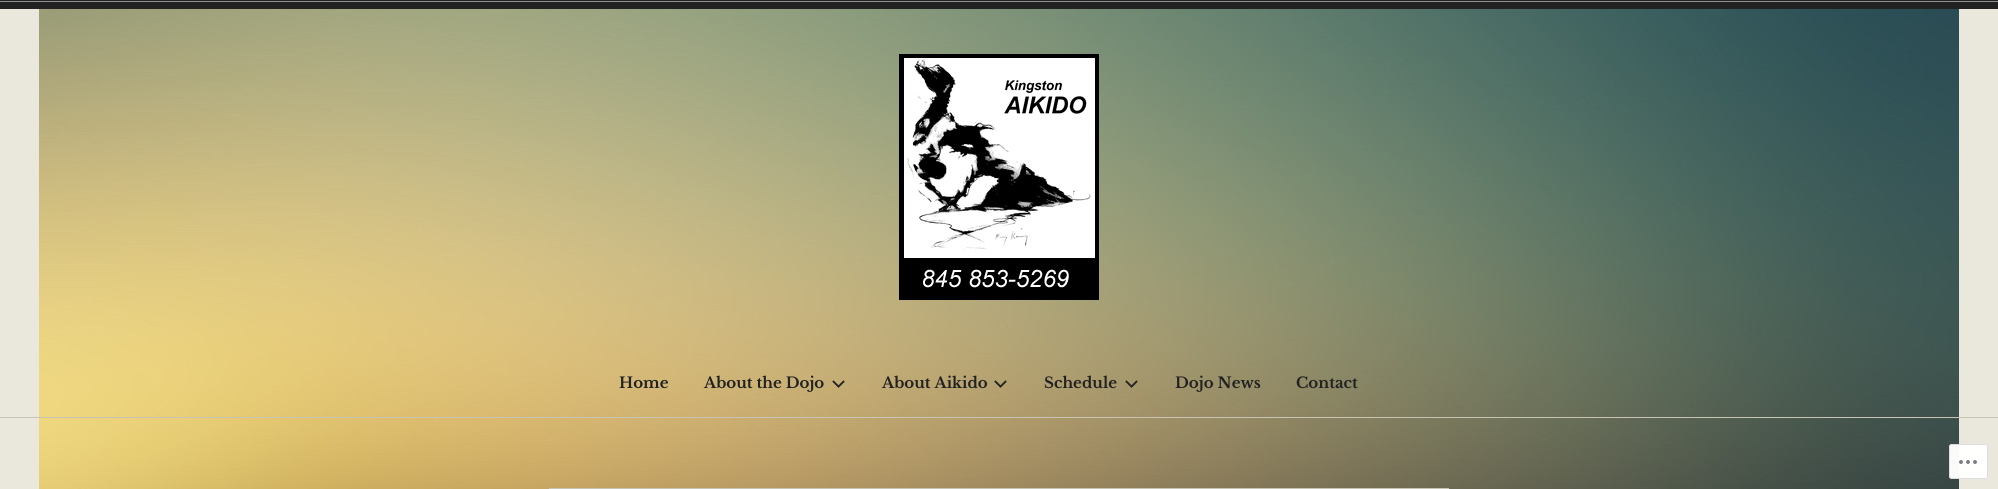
#include <cairo.h>
#include <math.h>
#include <stddef.h>

typedef struct { double x, y, w, h; unsigned color; } box_t;

static void ink(cairo_t *ctx, unsigned color) {
    cairo_set_source_rgb(ctx, (color >> 16) / 255.0, (color >> 8 & 255) / 255.0, (color & 255) / 255.0);
}

static void round_path(cairo_t *ctx, double x, double y, double w, double h, double r) {
    cairo_new_sub_path(ctx);
    cairo_arc(ctx, x + w - r, y + h - r, r, 0, M_PI / 2);
    cairo_arc(ctx, x + r, y + h - r, r, M_PI / 2, M_PI);
    cairo_arc(ctx, x + r, y + r, r, M_PI, 1.5 * M_PI);
    cairo_arc(ctx, x + w - r, y + r, r, 1.5 * M_PI, 2 * M_PI);
    cairo_close_path(ctx);
}

static void paste(cairo_t *ctx, const char *path, double x, double y, double w, double h) {
    cairo_surface_t *image = cairo_image_surface_create_from_png(path);
    cairo_save(ctx);
    cairo_set_source_surface(ctx, image, x, y);
    cairo_rectangle(ctx, x, y, w, h);
    cairo_fill(ctx);
    cairo_restore(ctx);
    cairo_surface_destroy(image);
}

int main(void) {
    cairo_surface_t *surface = cairo_image_surface_create(CAIRO_FORMAT_RGB24, 1998, 489);
    cairo_t *ctx = cairo_create(surface);
    cairo_font_options_t *options = cairo_font_options_create();
    cairo_font_options_set_hint_metrics(options, CAIRO_HINT_METRICS_OFF);
    cairo_font_options_set_hint_style(options, CAIRO_HINT_STYLE_NONE);
    cairo_set_font_options(ctx, options);
    cairo_set_miter_limit(ctx, 4);
    ink(ctx, 0xEAE8DC);
    cairo_paint(ctx);
    paste(ctx, "media/1.png", 39, 9, 1920, 480);
    {
        static const box_t items[] = {
            {0, 0, 1998, 9, 0x222222},
            {0, 417, 1998, 1, 0xC7C4B4},
            {0, 1, 1998, 1, 0x919191},
        };
        for (size_t i = 0; i < sizeof items / sizeof *items; i++) {
            ink(ctx, items[i].color);
            cairo_rectangle(ctx, items[i].x, items[i].y, items[i].w, items[i].h);
            cairo_fill(ctx);
        }
    }
    paste(ctx, "media/2.png", 899, 54, 200, 246);
    cairo_select_font_face(ctx, "Libre Baskerville", CAIRO_FONT_SLANT_NORMAL, CAIRO_FONT_WEIGHT_BOLD);
    cairo_set_font_size(ctx, 15);
    ink(ctx, 0x222222);
    cairo_move_to(ctx, 619, 388);
    cairo_show_text(ctx, "Home");
    cairo_move_to(ctx, 704, 388);
    cairo_show_text(ctx, "About the Dojo");
    paste(ctx, "media/3.png", 832, 380, 13, 8);
    cairo_move_to(ctx, 882, 388);
    cairo_show_text(ctx, "About Aikido");
    paste(ctx, "media/4.png", 994, 380, 13, 8);
    cairo_move_to(ctx, 1044, 388);
    cairo_show_text(ctx, "Schedule");
    paste(ctx, "media/5.png", 1125, 380, 13, 8);
    cairo_move_to(ctx, 1175, 388);
    cairo_show_text(ctx, "Dojo News");
    cairo_move_to(ctx, 1296, 388);
    cairo_show_text(ctx, "Contact");
    cairo_rectangle(ctx, 549.5, 488.5, 899, 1);
    ink(ctx, 0xC7C4B4);
    cairo_set_line_width(ctx, 1);
    cairo_stroke(ctx);
    cairo_set_source_rgba(ctx, 1, 1, 1, 0.98);
    round_path(ctx, 1949, 444, 39, 35, 3);
    cairo_fill(ctx);
    round_path(ctx, 1949.5, 444.5, 38, 34, 2.5);
    cairo_set_source_rgba(ctx, 0.863, 0.863, 0.871, 0.98);
    cairo_stroke(ctx);
    paste(ctx, "media/6.png", 1959, 460, 18, 4);
    cairo_surface_write_to_png(surface, "image.png");
    cairo_font_options_destroy(options);
    cairo_destroy(ctx);
    cairo_surface_destroy(surface);
    return 0;
}
